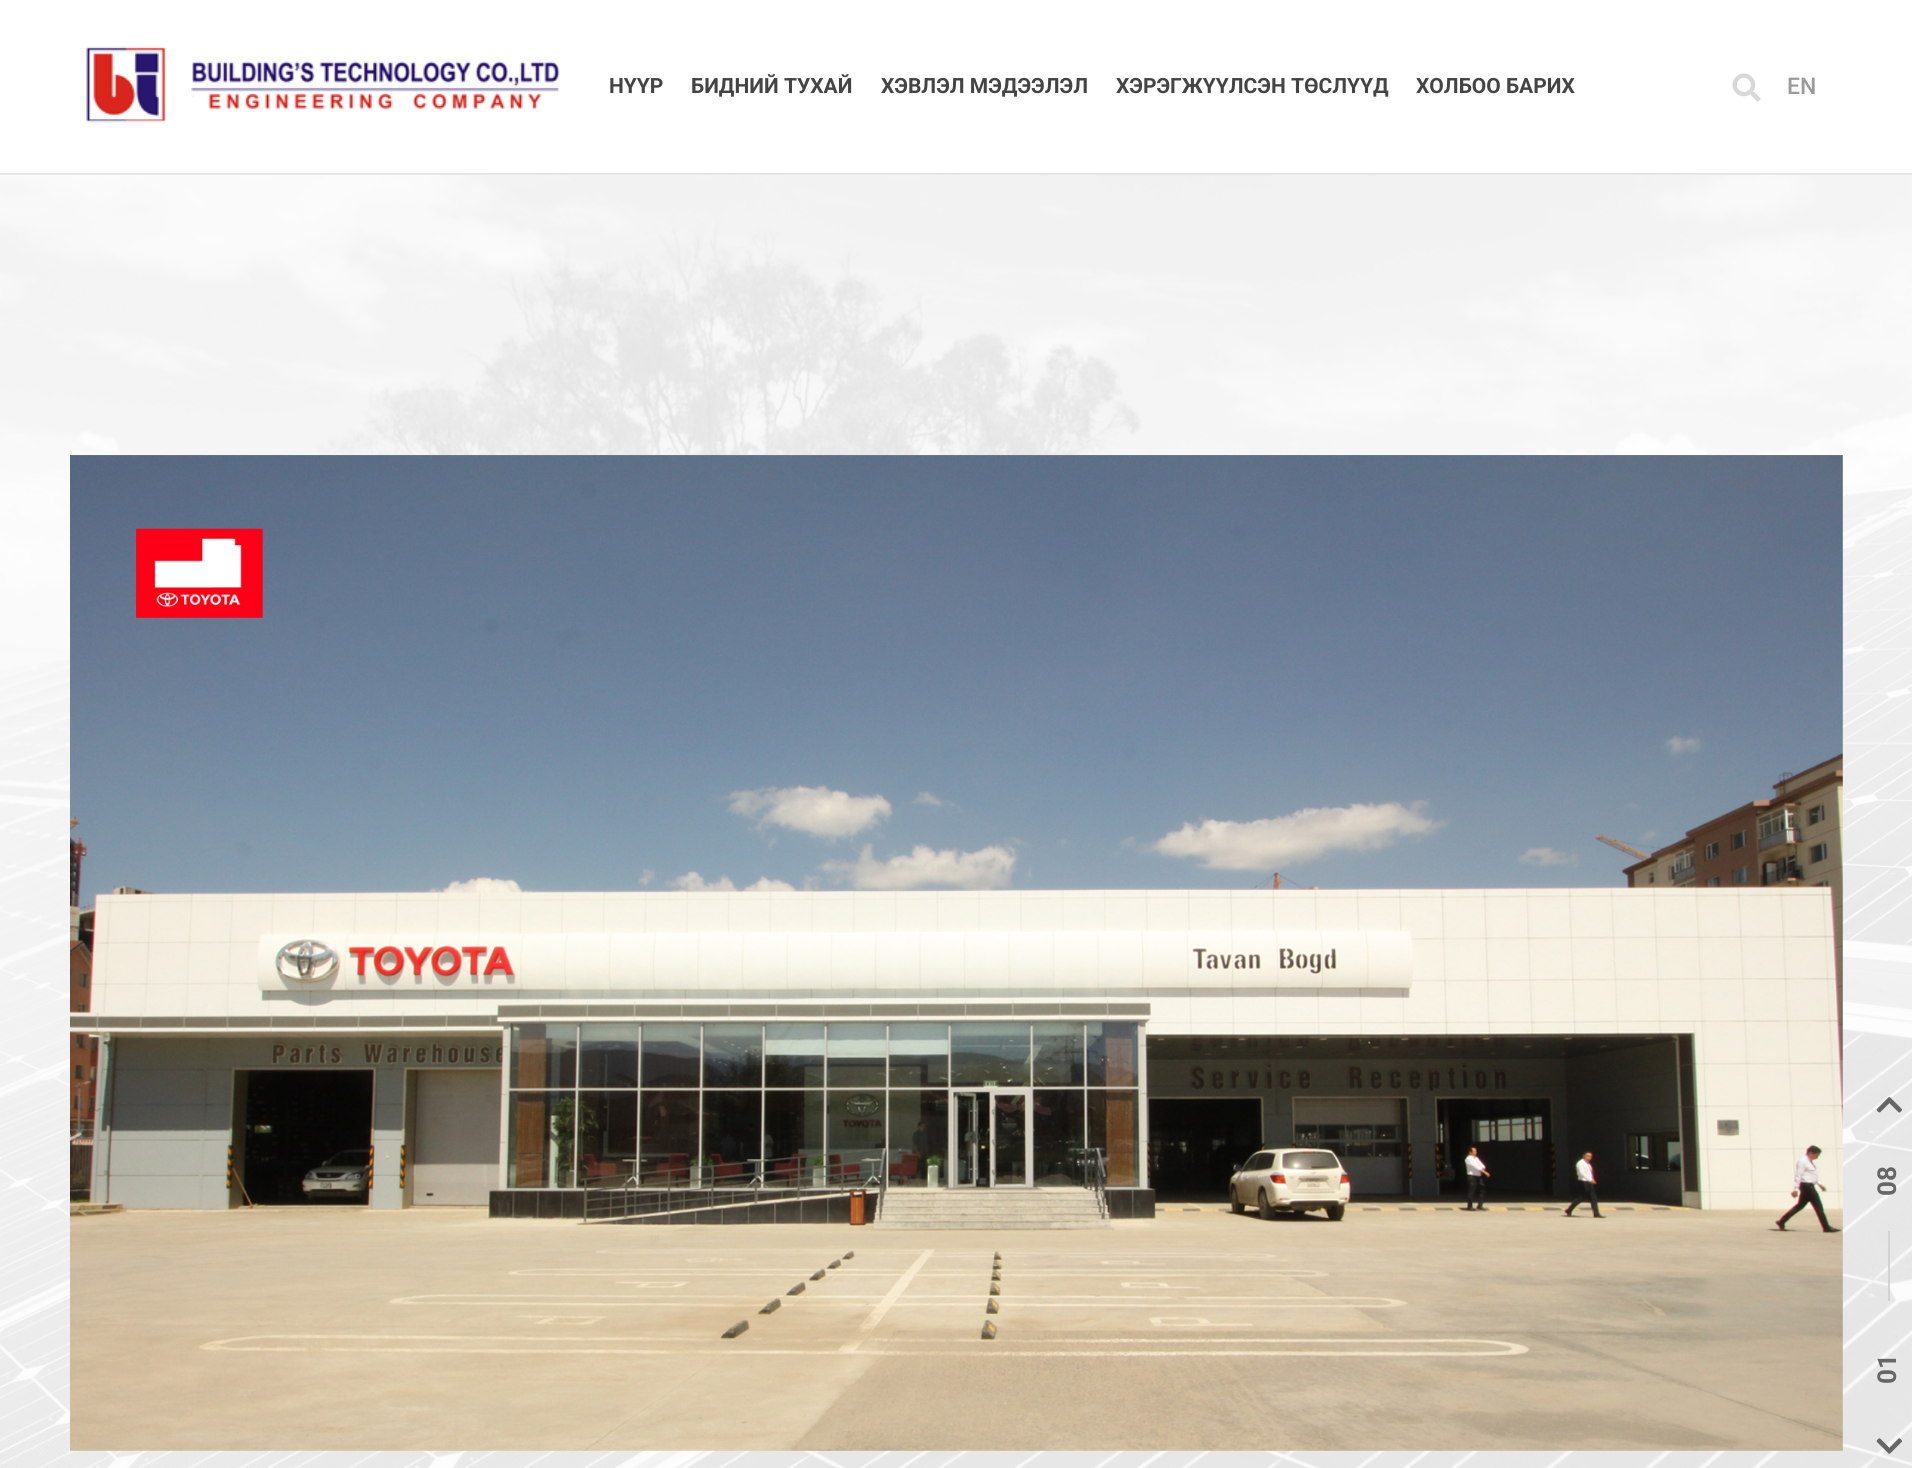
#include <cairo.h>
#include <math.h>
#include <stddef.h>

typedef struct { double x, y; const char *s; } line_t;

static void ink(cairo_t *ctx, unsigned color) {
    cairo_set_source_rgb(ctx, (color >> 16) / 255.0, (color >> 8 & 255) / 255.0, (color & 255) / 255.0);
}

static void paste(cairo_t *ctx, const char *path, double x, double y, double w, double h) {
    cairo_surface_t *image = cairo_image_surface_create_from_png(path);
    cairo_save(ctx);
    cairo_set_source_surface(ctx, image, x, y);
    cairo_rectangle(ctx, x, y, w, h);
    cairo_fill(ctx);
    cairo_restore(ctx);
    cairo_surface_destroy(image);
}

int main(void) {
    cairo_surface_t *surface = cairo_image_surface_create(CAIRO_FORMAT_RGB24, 1912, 1468);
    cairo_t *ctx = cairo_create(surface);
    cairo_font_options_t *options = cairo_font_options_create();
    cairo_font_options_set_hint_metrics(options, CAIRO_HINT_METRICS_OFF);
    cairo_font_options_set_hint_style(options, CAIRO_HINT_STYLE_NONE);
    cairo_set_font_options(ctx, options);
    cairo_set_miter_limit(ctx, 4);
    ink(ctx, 0xFFFFFF);
    cairo_paint(ctx);
    ink(ctx, 0xE6E6E6);
    cairo_rectangle(ctx, 0, 173, 1912, 2);
    cairo_fill(ctx);
    paste(ctx, "media/1.png", 86, 46, 474, 77);
    cairo_select_font_face(ctx, "Roboto", CAIRO_FONT_SLANT_NORMAL, CAIRO_FONT_WEIGHT_BOLD);
    cairo_set_font_size(ctx, 21);
    ink(ctx, 0x444444);
    {
        static const line_t items[] = {
            {609, 93, "НҮҮР"},
            {691, 93, "БИДНИЙ ТУХАЙ"},
            {881, 93, "ХЭВЛЭЛ МЭДЭЭЛЭЛ"},
            {1116, 93, "ХЭРЭГЖҮҮЛСЭН ТӨСЛҮҮД"},
            {1416, 93, "ХОЛБОО БАРИХ"},
        };
        for (size_t i = 0; i < sizeof items / sizeof *items; i++) {
            cairo_move_to(ctx, items[i].x, items[i].y);
            cairo_show_text(ctx, items[i].s);
        }
    }
    paste(ctx, "media/2.png", 1732, 73, 29, 29);
    cairo_select_font_face(ctx, "Roboto Medium", CAIRO_FONT_SLANT_NORMAL, CAIRO_FONT_WEIGHT_NORMAL);
    cairo_set_font_size(ctx, 23);
    ink(ctx, 0x9B9B9B);
    cairo_move_to(ctx, 1787, 94);
    cairo_show_text(ctx, "EN");
    paste(ctx, "media/3.png", 0, 175, 1912, 1293);
    paste(ctx, "media/4.png", 70, 455, 1773, 996);
    paste(ctx, "media/5.png", 1876, 1097, 26, 16);
    cairo_select_font_face(ctx, "Roboto", CAIRO_FONT_SLANT_NORMAL, CAIRO_FONT_WEIGHT_BOLD);
    cairo_set_font_size(ctx, 26);
    ink(ctx, 0x666666);
    cairo_save(ctx);
    cairo_translate(ctx, 1896, 1196);
    cairo_rotate(ctx, -90 * M_PI / 180);
    cairo_move_to(ctx, 0, 0);
    cairo_show_text(ctx, "08");
    cairo_restore(ctx);
    ink(ctx, 0xD3D3D3);
    cairo_rectangle(ctx, 1888, 1231, 2, 70);
    cairo_fill(ctx);
    ink(ctx, 0x666666);
    cairo_save(ctx);
    cairo_translate(ctx, 1896, 1384);
    cairo_rotate(ctx, -90 * M_PI / 180);
    cairo_move_to(ctx, 0, 0);
    cairo_show_text(ctx, "01");
    cairo_restore(ctx);
    paste(ctx, "media/6.png", 1876, 1438, 26, 16);
    cairo_surface_write_to_png(surface, "image.png");
    cairo_font_options_destroy(options);
    cairo_destroy(ctx);
    cairo_surface_destroy(surface);
    return 0;
}
